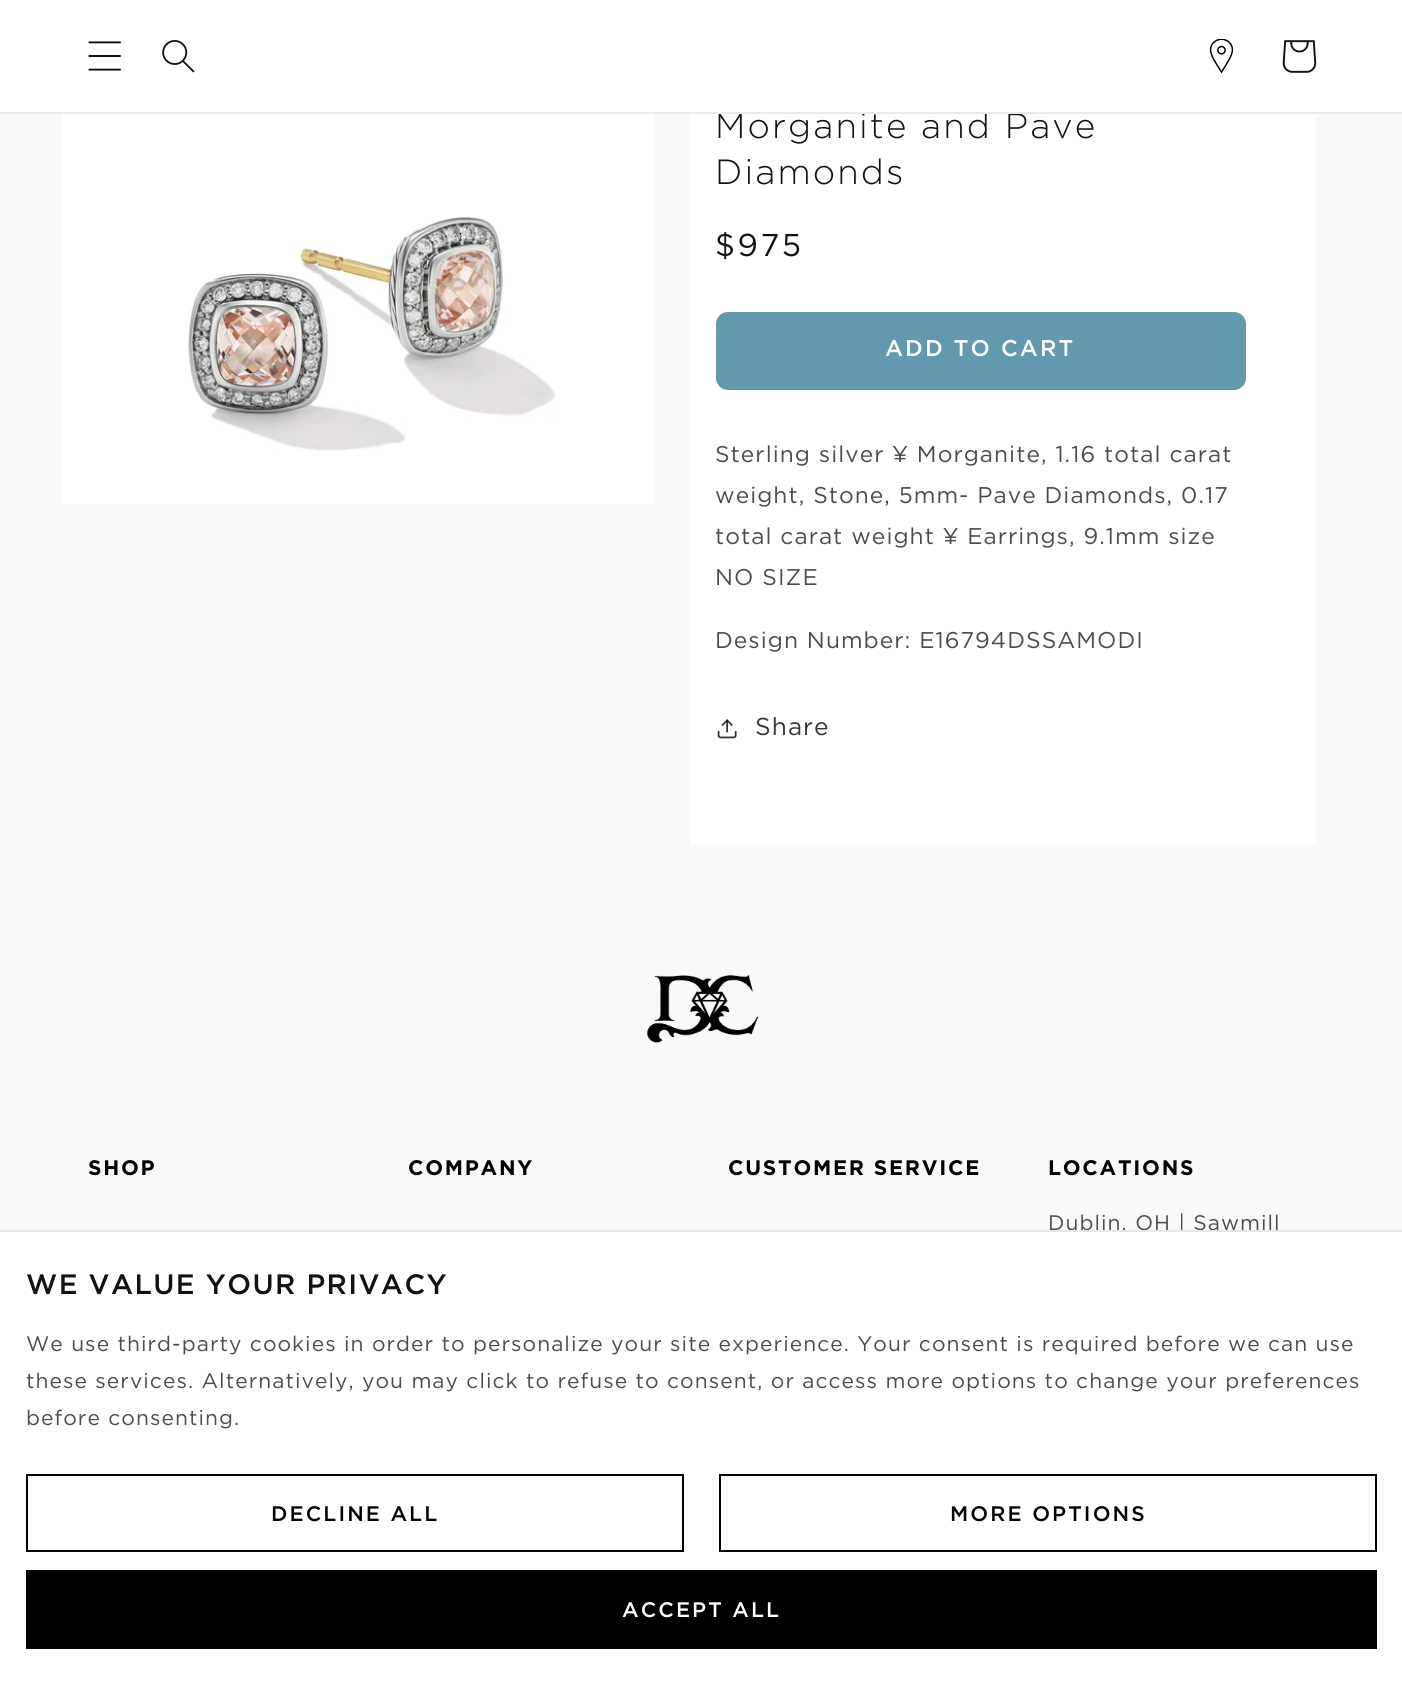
#include <cairo.h>
#include <math.h>
#include <stddef.h>

typedef struct { double x, y; const char *s; } line_t;

static void ink(cairo_t *ctx, unsigned color) {
    cairo_set_source_rgb(ctx, (color >> 16) / 255.0, (color >> 8 & 255) / 255.0, (color & 255) / 255.0);
}

static void write_spaced(cairo_t *ctx, double x, double y, const char *s, double letter, double word) {
    cairo_move_to(ctx, x, y);
    while (*s) {
        char ch[5] = {0};
        int n = 0;
        do ch[n++] = *s++; while ((*s & 0xC0) == 0x80);
        cairo_show_text(ctx, ch);
        cairo_rel_move_to(ctx, letter + word * (*ch == ' '), 0);
    }
}

static void round_path(cairo_t *ctx, double x, double y, double w, double h, double r) {
    cairo_new_sub_path(ctx);
    cairo_arc(ctx, x + w - r, y + h - r, r, 0, M_PI / 2);
    cairo_arc(ctx, x + r, y + h - r, r, M_PI / 2, M_PI);
    cairo_arc(ctx, x + r, y + r, r, M_PI, 1.5 * M_PI);
    cairo_arc(ctx, x + w - r, y + r, r, 1.5 * M_PI, 2 * M_PI);
    cairo_close_path(ctx);
}

static void paste(cairo_t *ctx, const char *path, double x, double y, double w, double h) {
    cairo_surface_t *image = cairo_image_surface_create_from_png(path);
    cairo_save(ctx);
    cairo_set_source_surface(ctx, image, x, y);
    cairo_rectangle(ctx, x, y, w, h);
    cairo_fill(ctx);
    cairo_restore(ctx);
    cairo_surface_destroy(image);
}

int main(void) {
    cairo_surface_t *surface = cairo_image_surface_create(CAIRO_FORMAT_RGB24, 1402, 1692);
    cairo_t *ctx = cairo_create(surface);
    cairo_font_options_t *options = cairo_font_options_create();
    cairo_font_options_set_hint_metrics(options, CAIRO_HINT_METRICS_OFF);
    cairo_font_options_set_hint_style(options, CAIRO_HINT_STYLE_NONE);
    cairo_set_font_options(ctx, options);
    cairo_set_miter_limit(ctx, 4);
    ink(ctx, 0xF9F9F9);
    cairo_paint(ctx);
    ink(ctx, 0xFFFFFF);
    cairo_rectangle(ctx, 0, 0, 1402, 112);
    cairo_fill(ctx);
    cairo_rectangle(ctx, 690, 114, 626, 731);
    cairo_fill(ctx);
    cairo_select_font_face(ctx, "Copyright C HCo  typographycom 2 Light", CAIRO_FONT_SLANT_NORMAL, CAIRO_FONT_WEIGHT_NORMAL);
    cairo_set_font_size(ctx, 35);
    ink(ctx, 0x121212);
    write_spaced(ctx, 715, 138, "Morganite and Pave", 2.1, 0);
    ink(ctx, 0xECECEC);
    cairo_rectangle(ctx, 0, 112, 1402, 2);
    cairo_fill(ctx);
    paste(ctx, "media/1.png", 88, 41, 33, 30);
    paste(ctx, "media/2.png", 162, 40, 33, 33);
    paste(ctx, "media/3.png", 1209, 39, 25, 35);
    paste(ctx, "media/4.png", 1282, 40, 35, 33);
    ink(ctx, 0xFFFFFF);
    cairo_rectangle(ctx, 61, 114, 594, 390);
    cairo_fill(ctx);
    paste(ctx, "media/5.png", 187, 217, 369, 234);
    ink(ctx, 0x121212);
    write_spaced(ctx, 715, 184, "Diamonds", 2.1, 0);
    cairo_select_font_face(ctx, "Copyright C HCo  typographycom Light", CAIRO_FONT_SLANT_NORMAL, CAIRO_FONT_WEIGHT_NORMAL);
    cairo_set_font_size(ctx, 31.5);
    write_spaced(ctx, 715, 256, "$975", 2.5, 0);
    ink(ctx, 0x6399AF);
    round_path(ctx, 716, 312, 530, 78, 12);
    cairo_fill(ctx);
    cairo_select_font_face(ctx, "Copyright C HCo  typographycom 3 Light", CAIRO_FONT_SLANT_NORMAL, CAIRO_FONT_WEIGHT_NORMAL);
    cairo_set_font_size(ctx, 22.75);
    ink(ctx, 0xFFFFFF);
    write_spaced(ctx, 885, 356, "ADD TO CART", 2.1, 0);
    cairo_select_font_face(ctx, "Copyright C HCo  typographycom Light", CAIRO_FONT_SLANT_NORMAL, CAIRO_FONT_WEIGHT_NORMAL);
    ink(ctx, 0x4B4B4B);
    {
        static const line_t items[] = {
            {715, 462, "Sterling silver ¥ Morganite, 1.16 total carat"},
            {715, 503, "weight, Stone, 5mm- Pave Diamonds, 0.17"},
            {715, 544, "total carat weight ¥ Earrings, 9.1mm size"},
            {715, 585, "NO SIZE"},
            {715, 648, "Design Number: E16794DSSAMODI"},
        };
        for (size_t i = 0; i < sizeof items / sizeof *items; i++) {
            write_spaced(ctx, items[i].x, items[i].y, items[i].s, 1.05, 0);
        }
    }
    paste(ctx, "media/6.png", 717, 719, 20, 20);
    cairo_set_font_size(ctx, 24.5);
    ink(ctx, 0x363636);
    write_spaced(ctx, 755, 735, "Share", 1.05, 0);
    paste(ctx, "media/7.png", 646, 975, 113, 68);
    cairo_select_font_face(ctx, "Copyright C HCo  typographycom", CAIRO_FONT_SLANT_NORMAL, CAIRO_FONT_WEIGHT_NORMAL);
    cairo_set_font_size(ctx, 21);
    ink(ctx, 0x000000);
    {
        static const line_t items[] = {
            {88, 1175, "SHOP"},
            {408, 1175, "COMPANY"},
            {728, 1175, "CUSTOMER SERVICE"},
            {1048, 1175, "LOCATIONS"},
        };
        for (size_t i = 0; i < sizeof items / sizeof *items; i++) {
            write_spaced(ctx, items[i].x, items[i].y, items[i].s, 1.75, 0);
        }
    }
    cairo_select_font_face(ctx, "Copyright C HCo  typographycom Light", CAIRO_FONT_SLANT_NORMAL, CAIRO_FONT_WEIGHT_NORMAL);
    ink(ctx, 0x4B4B4B);
    write_spaced(ctx, 1048, 1230, "Dublin, OH | Sawmill", 1.05, 0);
    ink(ctx, 0xFFFFFF);
    cairo_rectangle(ctx, 0, 1232, 1402, 460);
    cairo_fill(ctx);
    ink(ctx, 0xE7E7E7);
    cairo_rectangle(ctx, 0, 1230, 1402, 2);
    cairo_fill(ctx);
    cairo_select_font_face(ctx, "Copyright C HCo  typographycom 3 Light", CAIRO_FONT_SLANT_NORMAL, CAIRO_FONT_WEIGHT_NORMAL);
    cairo_set_font_size(ctx, 28);
    ink(ctx, 0x121212);
    write_spaced(ctx, 26, 1294, "WE VALUE YOUR PRIVACY", 1.4, 0);
    cairo_select_font_face(ctx, "Copyright C HCo  typographycom Light", CAIRO_FONT_SLANT_NORMAL, CAIRO_FONT_WEIGHT_NORMAL);
    cairo_set_font_size(ctx, 21);
    ink(ctx, 0x4B4B4B);
    {
        static const line_t items[] = {
            {26, 1351, "We use third-party cookies in order to personalize your site experience. Your consent is required before we can use"},
            {26, 1388, "these services. Alternatively, you may click to refuse to consent, or access more options to change your preferences"},
            {26, 1425, "before consenting."},
        };
        for (size_t i = 0; i < sizeof items / sizeof *items; i++) {
            write_spaced(ctx, items[i].x, items[i].y, items[i].s, 1.05, 0);
        }
    }
    cairo_rectangle(ctx, 27, 1475, 656, 76);
    ink(ctx, 0x000000);
    cairo_stroke(ctx);
    cairo_select_font_face(ctx, "Copyright C HCo  typographycom 3 Light", CAIRO_FONT_SLANT_NORMAL, CAIRO_FONT_WEIGHT_NORMAL);
    write_spaced(ctx, 271, 1521, "DECLINE ALL", 2.1, 0);
    cairo_rectangle(ctx, 720, 1475, 656, 76);
    cairo_stroke(ctx);
    write_spaced(ctx, 950, 1521, "MORE OPTIONS", 2.1, 0);
    cairo_rectangle(ctx, 26, 1570, 1351, 79);
    cairo_fill(ctx);
    ink(ctx, 0xFFFFFF);
    write_spaced(ctx, 622, 1617, "ACCEPT ALL", 2.1, 0);
    cairo_surface_write_to_png(surface, "image.png");
    cairo_font_options_destroy(options);
    cairo_destroy(ctx);
    cairo_surface_destroy(surface);
    return 0;
}
